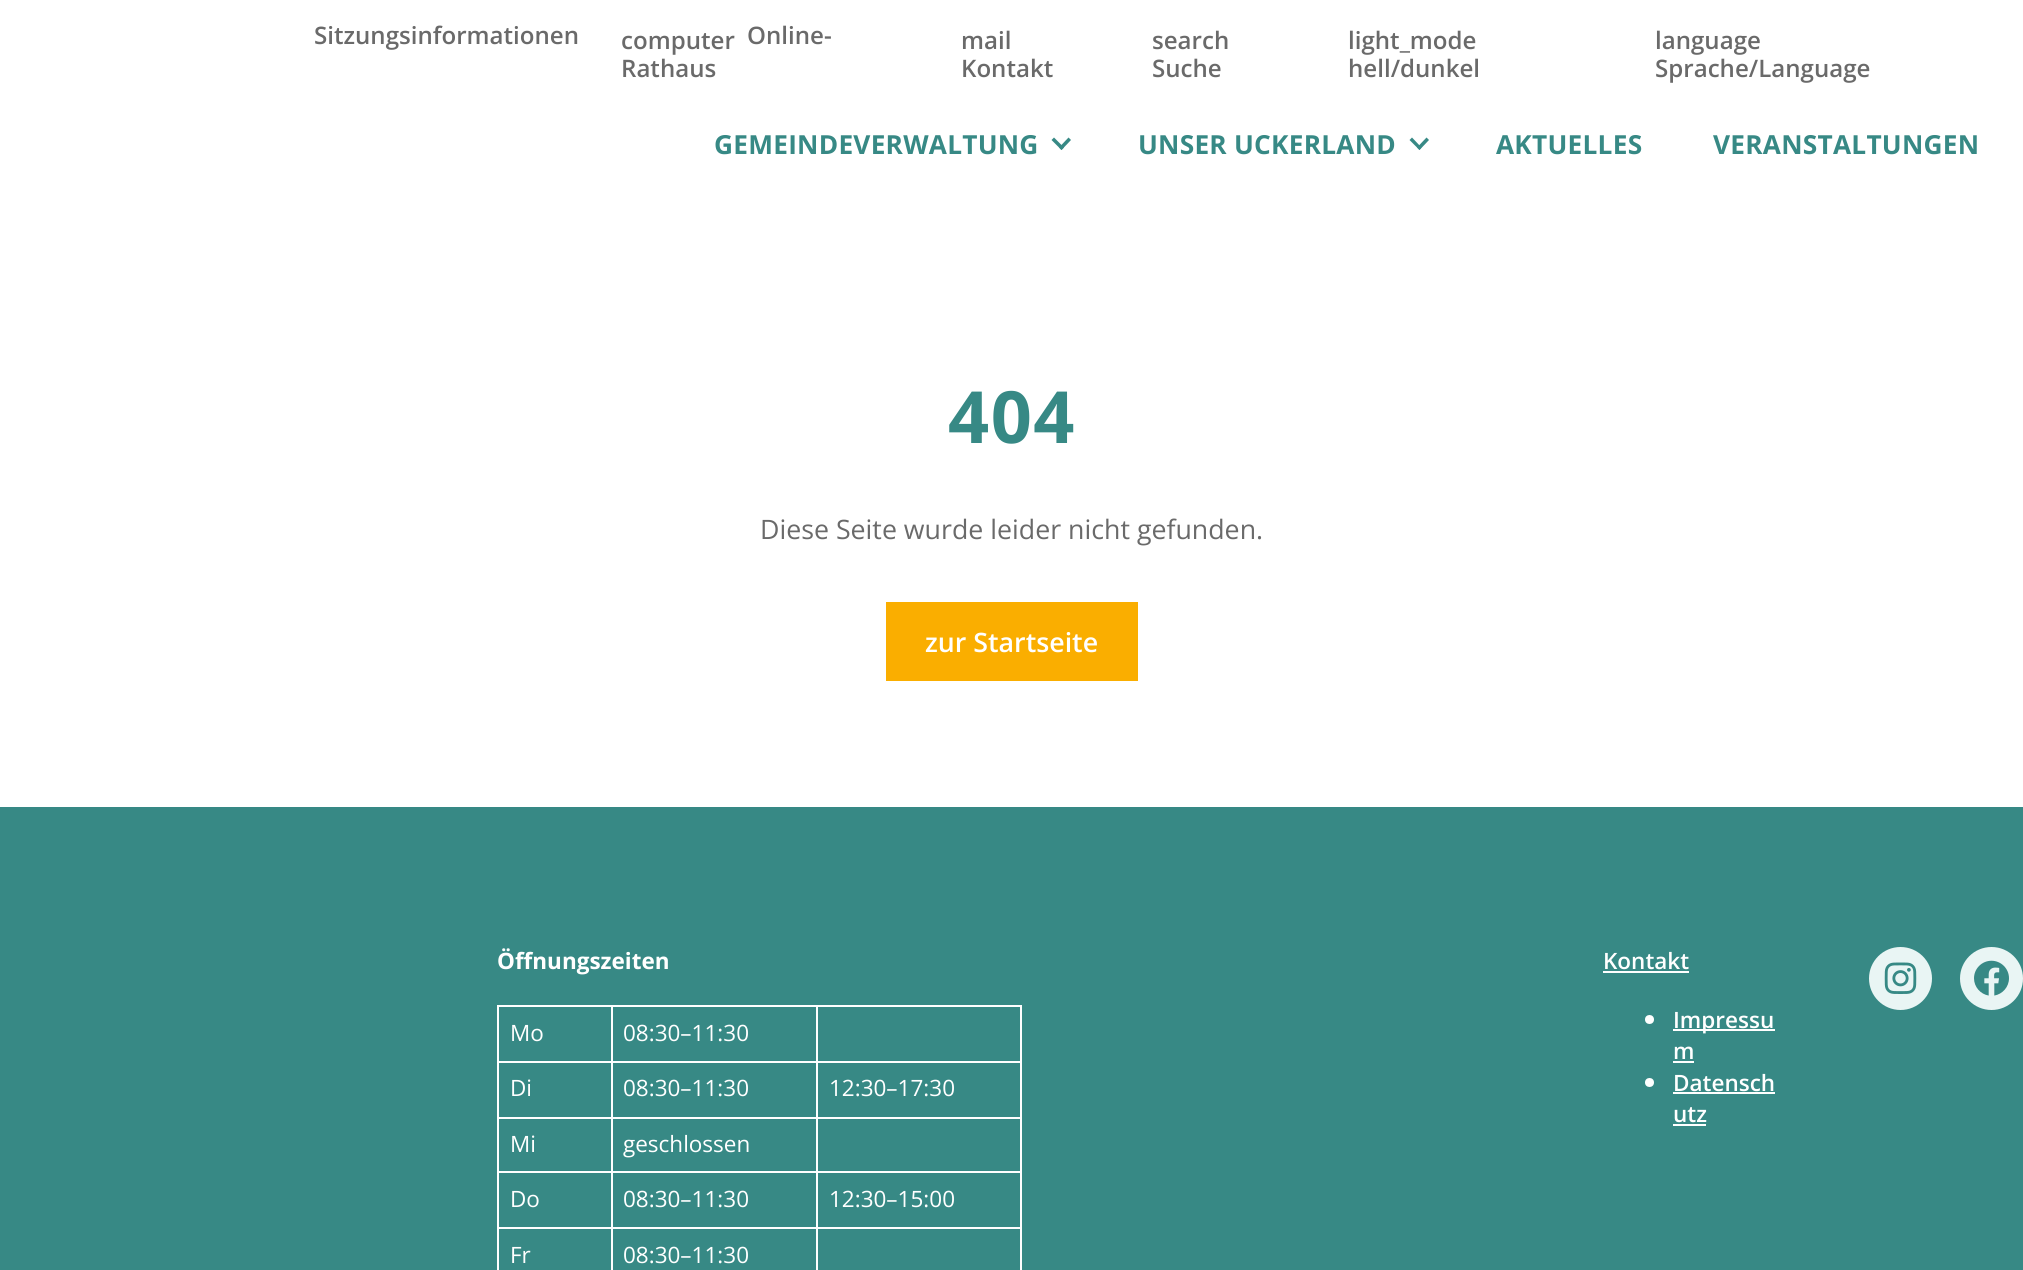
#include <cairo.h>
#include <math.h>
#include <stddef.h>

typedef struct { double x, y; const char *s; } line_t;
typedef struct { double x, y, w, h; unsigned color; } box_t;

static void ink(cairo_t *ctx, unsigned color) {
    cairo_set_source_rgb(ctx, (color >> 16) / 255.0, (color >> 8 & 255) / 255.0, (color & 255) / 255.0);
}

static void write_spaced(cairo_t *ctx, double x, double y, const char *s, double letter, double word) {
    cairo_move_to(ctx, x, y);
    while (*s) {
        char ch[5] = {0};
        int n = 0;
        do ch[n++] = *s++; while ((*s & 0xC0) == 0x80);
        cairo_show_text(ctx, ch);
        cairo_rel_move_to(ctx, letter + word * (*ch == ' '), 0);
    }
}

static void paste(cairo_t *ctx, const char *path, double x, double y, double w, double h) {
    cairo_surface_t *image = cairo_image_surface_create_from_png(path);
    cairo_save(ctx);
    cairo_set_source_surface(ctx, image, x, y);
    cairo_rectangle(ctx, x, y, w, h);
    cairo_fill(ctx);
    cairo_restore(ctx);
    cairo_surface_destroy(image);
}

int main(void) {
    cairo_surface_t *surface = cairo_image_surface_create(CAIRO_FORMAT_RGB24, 2023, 1270);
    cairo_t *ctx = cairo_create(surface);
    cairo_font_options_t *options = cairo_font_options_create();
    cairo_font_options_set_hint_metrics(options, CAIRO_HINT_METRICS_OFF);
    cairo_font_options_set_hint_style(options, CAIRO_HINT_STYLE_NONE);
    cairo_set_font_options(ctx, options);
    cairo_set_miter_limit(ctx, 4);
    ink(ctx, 0xFFFFFF);
    cairo_paint(ctx);
    cairo_select_font_face(ctx, "Open Sans SemiBold", CAIRO_FONT_SLANT_NORMAL, CAIRO_FONT_WEIGHT_NORMAL);
    cairo_set_font_size(ctx, 24.1);
    ink(ctx, 0x6A6A6A);
    {
        static const line_t items[] = {
            {314, 44, "Sitzungsinformationen"},
            {621, 49, "computer"},
            {747, 44, "Online-"},
            {621, 77, "Rathaus"},
            {961, 49, "mail"},
            {961, 77, "Kontakt"},
            {1152, 49, "search"},
            {1152, 77, "Suche"},
            {1348, 49, "light_mode"},
            {1348, 77, "hell/dunkel"},
            {1655, 49, "language"},
            {1655, 77, "Sprache/Language"},
        };
        for (size_t i = 0; i < sizeof items / sizeof *items; i++) {
            cairo_move_to(ctx, items[i].x, items[i].y);
            cairo_show_text(ctx, items[i].s);
        }
    }
    cairo_select_font_face(ctx, "Open Sans", CAIRO_FONT_SLANT_NORMAL, CAIRO_FONT_WEIGHT_BOLD);
    cairo_set_font_size(ctx, 26.25);
    ink(ctx, 0x378985);
    write_spaced(ctx, 714, 154, "GEMEINDEVERWALTUNG", 0.25, 0);
    cairo_new_path(ctx);
    cairo_move_to(ctx, 1068.5, 137.5);
    cairo_line_to(ctx, 1071, 140);
    cairo_line_to(ctx, 1061.5, 150);
    cairo_line_to(ctx, 1059, 147.5);
    cairo_close_path(ctx);
    cairo_fill(ctx);
    cairo_new_path(ctx);
    cairo_move_to(ctx, 1054, 137.5);
    cairo_line_to(ctx, 1064, 147.5);
    cairo_line_to(ctx, 1061.5, 150);
    cairo_line_to(ctx, 1051.5, 140);
    cairo_close_path(ctx);
    cairo_fill(ctx);
    write_spaced(ctx, 1138, 154, "UNSER UCKERLAND", 0.25, 0);
    cairo_new_path(ctx);
    cairo_move_to(ctx, 1426.5, 137.5);
    cairo_line_to(ctx, 1429, 140);
    cairo_line_to(ctx, 1419.5, 150);
    cairo_line_to(ctx, 1417, 147.5);
    cairo_close_path(ctx);
    cairo_fill(ctx);
    cairo_new_path(ctx);
    cairo_move_to(ctx, 1412, 137.5);
    cairo_line_to(ctx, 1421.5, 147.5);
    cairo_line_to(ctx, 1419.5, 150);
    cairo_line_to(ctx, 1409.5, 140);
    cairo_close_path(ctx);
    cairo_fill(ctx);
    write_spaced(ctx, 1496, 154, "AKTUELLES", 0.25, 0);
    write_spaced(ctx, 1713, 154, "VERANSTALTUNGEN", 0.25, 0);
    cairo_set_font_size(ctx, 72);
    write_spaced(ctx, 948, 443, "404", 1.5, 0);
    cairo_select_font_face(ctx, "Open Sans", CAIRO_FONT_SLANT_NORMAL, CAIRO_FONT_WEIGHT_NORMAL);
    cairo_set_font_size(ctx, 26.75);
    ink(ctx, 0x6A6A6A);
    cairo_move_to(ctx, 760, 539);
    cairo_show_text(ctx, "Diese Seite wurde leider nicht gefunden.");
    ink(ctx, 0xFAAE00);
    cairo_rectangle(ctx, 886, 602, 252, 79);
    cairo_fill(ctx);
    cairo_select_font_face(ctx, "Open Sans SemiBold", CAIRO_FONT_SLANT_NORMAL, CAIRO_FONT_WEIGHT_NORMAL);
    ink(ctx, 0xFFFFFF);
    cairo_move_to(ctx, 925, 652);
    cairo_show_text(ctx, "zur Startseite");
    ink(ctx, 0x378985);
    cairo_rectangle(ctx, 0, 807, 2023, 463);
    cairo_fill(ctx);
    cairo_select_font_face(ctx, "Open Sans", CAIRO_FONT_SLANT_NORMAL, CAIRO_FONT_WEIGHT_BOLD);
    cairo_set_font_size(ctx, 22.5);
    ink(ctx, 0xFFFFFF);
    cairo_move_to(ctx, 497, 969);
    cairo_show_text(ctx, "Öffnungszeiten");
    {
        static const box_t items[] = {
            {816, 1005, 206, 2, 0xFFFFFF},
            {816, 1061, 206, 2, 0xFFFFFF},
            {816, 1117, 206, 2, 0xFFFFFF},
            {816, 1171, 206, 2, 0xFFFFFF},
            {816, 1227, 206, 2, 0xFFFFFF},
            {816, 1227, 2, 43, 0xFFFFFF},
            {611, 1227, 206, 2, 0xFFFFFF},
            {816, 1171, 2, 58, 0xFFFFFF},
            {611, 1171, 206, 2, 0xFFFFFF},
            {816, 1117, 2, 56, 0xFFFFFF},
            {611, 1117, 206, 2, 0xFFFFFF},
            {816, 1061, 2, 57, 0xFFFFFF},
            {611, 1061, 206, 2, 0xFFFFFF},
            {816, 1005, 2, 57, 0xFFFFFF},
            {611, 1005, 206, 2, 0xFFFFFF},
            {611, 1227, 2, 43, 0xFFFFFF},
            {497, 1227, 116, 2, 0xFFFFFF},
            {611, 1171, 2, 58, 0xFFFFFF},
            {497, 1171, 116, 2, 0xFFFFFF},
            {611, 1117, 2, 56, 0xFFFFFF},
            {497, 1117, 116, 2, 0xFFFFFF},
            {611, 1061, 2, 57, 0xFFFFFF},
            {497, 1061, 116, 2, 0xFFFFFF},
            {611, 1005, 2, 57, 0xFFFFFF},
            {497, 1005, 116, 2, 0xFFFFFF},
            {497, 1227, 2, 43, 0xFFFFFF},
            {497, 1171, 2, 58, 0xFFFFFF},
            {497, 1117, 2, 56, 0xFFFFFF},
            {497, 1061, 2, 57, 0xFFFFFF},
            {497, 1005, 2, 57, 0xFFFFFF},
        };
        for (size_t i = 0; i < sizeof items / sizeof *items; i++) {
            ink(ctx, items[i].color);
            cairo_rectangle(ctx, items[i].x, items[i].y, items[i].w, items[i].h);
            cairo_fill(ctx);
        }
    }
    cairo_select_font_face(ctx, "Open Sans", CAIRO_FONT_SLANT_NORMAL, CAIRO_FONT_WEIGHT_NORMAL);
    cairo_move_to(ctx, 510, 1041);
    cairo_show_text(ctx, "Mo");
    cairo_move_to(ctx, 623, 1041);
    cairo_show_text(ctx, "08:30–11:30");
    {
        static const box_t items[] = {
            {1020, 1227, 2, 43, 0xFFFFFF},
            {1020, 1171, 2, 58, 0xFFFFFF},
            {1020, 1117, 2, 56, 0xFFFFFF},
            {1020, 1061, 2, 57, 0xFFFFFF},
            {1020, 1005, 2, 57, 0xFFFFFF},
        };
        for (size_t i = 0; i < sizeof items / sizeof *items; i++) {
            ink(ctx, items[i].color);
            cairo_rectangle(ctx, items[i].x, items[i].y, items[i].w, items[i].h);
            cairo_fill(ctx);
        }
    }
    {
        static const line_t items[] = {
            {510, 1096, "Di"},
            {623, 1096, "08:30–11:30"},
            {829, 1096, "12:30–17:30"},
            {510, 1152, "Mi"},
            {623, 1152, "geschlossen"},
            {510, 1207, "Do"},
            {623, 1207, "08:30–11:30"},
            {829, 1207, "12:30–15:00"},
            {510, 1263, "Fr"},
            {623, 1263, "08:30–11:30"},
        };
        for (size_t i = 0; i < sizeof items / sizeof *items; i++) {
            cairo_move_to(ctx, items[i].x, items[i].y);
            cairo_show_text(ctx, items[i].s);
        }
    }
    cairo_select_font_face(ctx, "Open Sans SemiBold", CAIRO_FONT_SLANT_NORMAL, CAIRO_FONT_WEIGHT_NORMAL);
    cairo_move_to(ctx, 1603, 969);
    cairo_show_text(ctx, "Kontakt");
    cairo_rectangle(ctx, 1603, 971, 86, 2);
    cairo_fill(ctx);
    cairo_arc(ctx, 1649.5, 1019.5, 4.5, 0, 2 * M_PI);
    cairo_fill(ctx);
    cairo_rectangle(ctx, 1673, 1029, 102, 2);
    cairo_fill(ctx);
    cairo_move_to(ctx, 1673, 1028);
    cairo_show_text(ctx, "Impressu");
    cairo_move_to(ctx, 1673, 1059);
    cairo_show_text(ctx, "m");
    cairo_rectangle(ctx, 1673, 1061, 21, 2);
    cairo_fill(ctx);
    cairo_arc(ctx, 1649.5, 1082.5, 4.5, 0, 2 * M_PI);
    cairo_fill(ctx);
    cairo_move_to(ctx, 1673, 1091);
    cairo_show_text(ctx, "Datensch");
    cairo_rectangle(ctx, 1673, 1092, 102, 2);
    cairo_fill(ctx);
    cairo_move_to(ctx, 1673, 1122);
    cairo_show_text(ctx, "utz");
    cairo_rectangle(ctx, 1673, 1124, 33, 2);
    cairo_fill(ctx);
    ink(ctx, 0xE9F5F4);
    cairo_arc(ctx, 1900.5, 978.5, 31.5, 0, 2 * M_PI);
    cairo_fill(ctx);
    paste(ctx, "media/1.png", 1884, 962, 33, 32);
    cairo_arc(ctx, 1991.5, 978.5, 31.5, 0, 2 * M_PI);
    cairo_fill(ctx);
    paste(ctx, "media/2.png", 1974, 960, 35, 36);
    cairo_surface_write_to_png(surface, "image.png");
    cairo_font_options_destroy(options);
    cairo_destroy(ctx);
    cairo_surface_destroy(surface);
    return 0;
}
